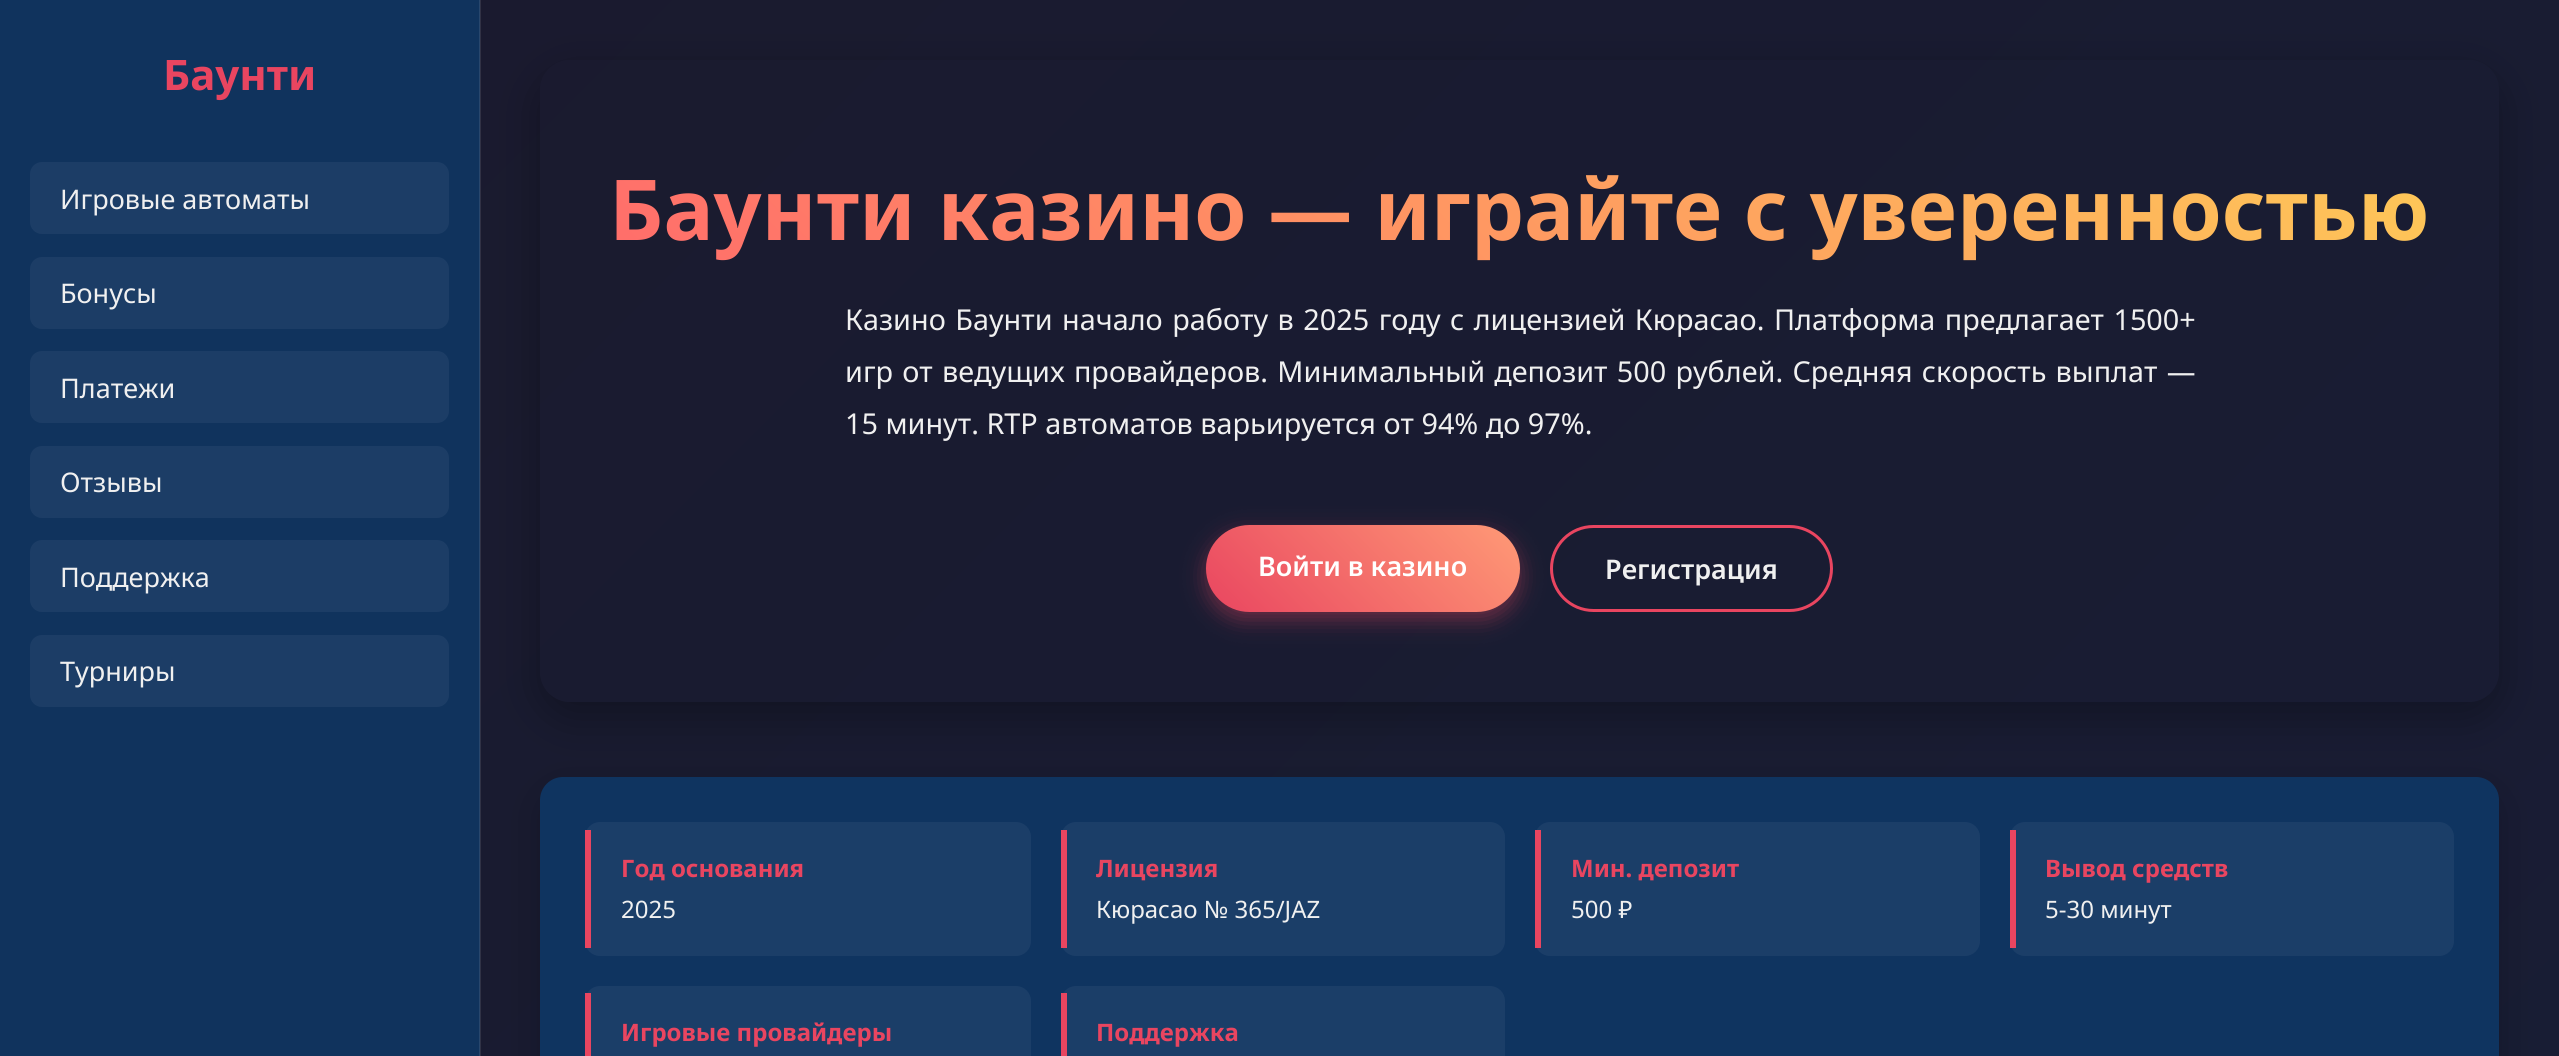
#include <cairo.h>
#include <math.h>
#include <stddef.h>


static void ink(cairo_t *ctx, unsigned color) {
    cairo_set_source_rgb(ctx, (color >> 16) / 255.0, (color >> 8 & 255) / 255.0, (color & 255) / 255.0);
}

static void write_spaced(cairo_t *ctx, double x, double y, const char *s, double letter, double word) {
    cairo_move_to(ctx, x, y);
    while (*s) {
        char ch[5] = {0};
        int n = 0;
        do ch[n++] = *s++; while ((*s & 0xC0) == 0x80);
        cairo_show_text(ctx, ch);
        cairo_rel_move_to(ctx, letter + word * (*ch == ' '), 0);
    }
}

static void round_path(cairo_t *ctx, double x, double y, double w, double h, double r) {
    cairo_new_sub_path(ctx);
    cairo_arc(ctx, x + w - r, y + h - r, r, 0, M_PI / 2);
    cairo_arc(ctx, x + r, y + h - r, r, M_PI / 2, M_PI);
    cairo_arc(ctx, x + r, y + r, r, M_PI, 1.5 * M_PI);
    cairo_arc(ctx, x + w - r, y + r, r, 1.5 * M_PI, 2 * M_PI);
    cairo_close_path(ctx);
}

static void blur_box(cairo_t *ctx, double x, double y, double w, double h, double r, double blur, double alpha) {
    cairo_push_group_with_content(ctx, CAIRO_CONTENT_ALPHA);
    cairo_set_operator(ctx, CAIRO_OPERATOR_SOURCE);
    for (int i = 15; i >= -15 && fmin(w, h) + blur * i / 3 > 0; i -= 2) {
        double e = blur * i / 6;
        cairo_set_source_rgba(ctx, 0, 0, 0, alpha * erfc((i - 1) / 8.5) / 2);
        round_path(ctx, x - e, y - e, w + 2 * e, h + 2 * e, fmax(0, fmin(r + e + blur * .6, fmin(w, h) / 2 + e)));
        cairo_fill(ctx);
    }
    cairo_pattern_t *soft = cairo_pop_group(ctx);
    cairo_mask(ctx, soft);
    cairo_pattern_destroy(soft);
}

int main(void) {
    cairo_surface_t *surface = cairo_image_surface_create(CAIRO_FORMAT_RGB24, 2559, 1056);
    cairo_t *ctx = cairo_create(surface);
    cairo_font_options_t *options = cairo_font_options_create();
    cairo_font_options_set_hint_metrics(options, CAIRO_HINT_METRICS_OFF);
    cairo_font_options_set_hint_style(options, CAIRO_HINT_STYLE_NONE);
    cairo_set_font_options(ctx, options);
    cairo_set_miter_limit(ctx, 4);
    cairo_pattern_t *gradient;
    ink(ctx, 0xFFFFFF);
    cairo_paint(ctx);
    gradient = cairo_pattern_create_linear(-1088, 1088, 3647, 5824);
    cairo_pattern_add_color_stop_rgba(gradient, 0, 0.102, 0.102, 0.18, 1);
    cairo_pattern_add_color_stop_rgba(gradient, 1, 0.086, 0.129, 0.243, 1);
    cairo_set_source(ctx, gradient);
    cairo_pattern_destroy(gradient);
    cairo_rectangle(ctx, 481, 0, 2078, 1056);
    cairo_fill(ctx);
    gradient = cairo_pattern_create_linear(-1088, 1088, 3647, 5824);
    cairo_pattern_add_color_stop_rgba(gradient, 0, 0.192, 0.192, 0.263, 1);
    cairo_pattern_add_color_stop_rgba(gradient, 1, 0.176, 0.216, 0.318, 1);
    cairo_set_source(ctx, gradient);
    cairo_pattern_destroy(gradient);
    cairo_rectangle(ctx, 480, 0, 1, 1056);
    cairo_fill(ctx);
    gradient = cairo_pattern_create_linear(-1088, 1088, 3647, 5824);
    cairo_pattern_add_color_stop_rgba(gradient, 0, 0.063, 0.2, 0.365, 1);
    cairo_pattern_add_color_stop_rgba(gradient, 1, 0.059, 0.2, 0.369, 1);
    cairo_set_source(ctx, gradient);
    cairo_pattern_destroy(gradient);
    cairo_rectangle(ctx, 0, 0, 479, 1056);
    cairo_fill(ctx);
    gradient = cairo_pattern_create_linear(-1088, 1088, 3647, 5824);
    cairo_pattern_add_color_stop_rgba(gradient, 0, 0.157, 0.278, 0.427, 1);
    cairo_pattern_add_color_stop_rgba(gradient, 1, 0.153, 0.278, 0.431, 1);
    cairo_set_source(ctx, gradient);
    cairo_pattern_destroy(gradient);
    cairo_rectangle(ctx, 479, 0, 1, 1056);
    cairo_fill(ctx);
    cairo_select_font_face(ctx, "Noto Sans", CAIRO_FONT_SLANT_NORMAL, CAIRO_FONT_WEIGHT_BOLD);
    cairo_set_font_size(ctx, 42);
    ink(ctx, 0xE94560);
    cairo_move_to(ctx, 163, 90);
    cairo_show_text(ctx, "Баунти");
    ink(ctx, 0x1C3D66);
    round_path(ctx, 30, 162, 419, 72, 12);
    cairo_fill(ctx);
    cairo_select_font_face(ctx, "Noto Sans", CAIRO_FONT_SLANT_NORMAL, CAIRO_FONT_WEIGHT_NORMAL);
    cairo_set_font_size(ctx, 27);
    ink(ctx, 0xF0F0F0);
    cairo_move_to(ctx, 60, 209);
    cairo_show_text(ctx, "Игровые автоматы");
    ink(ctx, 0x1C3D66);
    round_path(ctx, 30, 257, 419, 72, 12);
    cairo_fill(ctx);
    ink(ctx, 0xF0F0F0);
    cairo_move_to(ctx, 60, 303);
    cairo_show_text(ctx, "Бонусы");
    ink(ctx, 0x1C3D66);
    round_path(ctx, 30, 351, 419, 72, 12);
    cairo_fill(ctx);
    ink(ctx, 0xF0F0F0);
    cairo_move_to(ctx, 60, 398);
    cairo_show_text(ctx, "Платежи");
    ink(ctx, 0x1C3D66);
    round_path(ctx, 30, 446, 419, 72, 12);
    cairo_fill(ctx);
    ink(ctx, 0xF0F0F0);
    cairo_move_to(ctx, 60, 492);
    cairo_show_text(ctx, "Отзывы");
    ink(ctx, 0x1C3D66);
    round_path(ctx, 30, 540, 419, 72, 12);
    cairo_fill(ctx);
    ink(ctx, 0xF0F0F0);
    cairo_move_to(ctx, 60, 587);
    cairo_show_text(ctx, "Поддержка");
    ink(ctx, 0x1C3D66);
    round_path(ctx, 30, 635, 419, 72, 12);
    cairo_fill(ctx);
    ink(ctx, 0xF0F0F0);
    cairo_move_to(ctx, 60, 681);
    cairo_show_text(ctx, "Турниры");
    cairo_save(ctx);
    cairo_set_fill_rule(ctx, CAIRO_FILL_RULE_EVEN_ODD);
    cairo_new_path(ctx);
    cairo_move_to(ctx, 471, 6);
    cairo_line_to(ctx, 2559, 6);
    cairo_line_to(ctx, 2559, 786);
    cairo_line_to(ctx, 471, 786);
    cairo_close_path(ctx);
    cairo_move_to(ctx, 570, 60);
    cairo_line_to(ctx, 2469, 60);
    cairo_curve_to(ctx, 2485.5, 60, 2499, 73.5, 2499, 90);
    cairo_line_to(ctx, 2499, 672);
    cairo_curve_to(ctx, 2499, 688.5, 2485.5, 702, 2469, 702);
    cairo_line_to(ctx, 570, 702);
    cairo_curve_to(ctx, 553.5, 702, 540, 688.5, 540, 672);
    cairo_line_to(ctx, 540, 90);
    cairo_curve_to(ctx, 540, 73.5, 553.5, 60, 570, 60);
    cairo_close_path(ctx);
    cairo_clip(ctx);
    ink(ctx, 0x000000);
    blur_box(ctx, 540, 75, 1959, 642, 30, 22.5, 0.3);
    cairo_restore(ctx);
    cairo_select_font_face(ctx, "Noto Sans", CAIRO_FONT_SLANT_NORMAL, CAIRO_FONT_WEIGHT_BOLD);
    cairo_set_font_size(ctx, 84);
    gradient = cairo_pattern_create_linear(1016, 710, 2023, -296);
    cairo_pattern_add_color_stop_rgba(gradient, 0, 1, 0.42, 0.42, 1);
    cairo_pattern_add_color_stop_rgba(gradient, 1, 0.996, 0.792, 0.341, 1);
    cairo_set_source(ctx, gradient);
    cairo_pattern_destroy(gradient);
    cairo_move_to(ctx, 609, 240);
    cairo_show_text(ctx, "Баунти казино — играйте с уверенностью");
    cairo_select_font_face(ctx, "Noto Sans", CAIRO_FONT_SLANT_NORMAL, CAIRO_FONT_WEIGHT_NORMAL);
    cairo_set_font_size(ctx, 28.8);
    ink(ctx, 0xF0F0F0);
    write_spaced(ctx, 845, 330, "Казино Баунти начало работу в 2025 году с лицензией Кюрасао. Платформа предлагает 1500+", 0, 2);
    write_spaced(ctx, 845, 382, "игр от ведущих провайдеров. Минимальный депозит 500 рублей. Средняя скорость выплат —", 0, 1.75);
    cairo_move_to(ctx, 845, 434);
    cairo_show_text(ctx, "15 минут. RTP автоматов варьируется от 94% до 97%.");
    ink(ctx, 0xE94560);
    blur_box(ctx, 1206, 533, 314, 87, 43.5, 11, 0.4);
    gradient = cairo_pattern_create_linear(1263, 669, 1463, 468);
    cairo_pattern_add_color_stop_rgba(gradient, 0, 0.914, 0.271, 0.376, 1);
    cairo_pattern_add_color_stop_rgba(gradient, 1, 1, 0.604, 0.463, 1);
    cairo_set_source(ctx, gradient);
    cairo_pattern_destroy(gradient);
    round_path(ctx, 1206, 525, 314, 87, 43.5);
    cairo_fill(ctx);
    cairo_select_font_face(ctx, "Noto Sans SemiBold", CAIRO_FONT_SLANT_NORMAL, CAIRO_FONT_WEIGHT_NORMAL);
    cairo_set_font_size(ctx, 27);
    ink(ctx, 0xFFFFFF);
    cairo_move_to(ctx, 1258, 576);
    cairo_show_text(ctx, "Войти в казино");
    round_path(ctx, 1551.5, 526.5, 280, 84, 42);
    ink(ctx, 0xE94560);
    cairo_set_line_width(ctx, 3);
    cairo_stroke(ctx);
    ink(ctx, 0xF0F0F0);
    cairo_move_to(ctx, 1605, 579);
    cairo_show_text(ctx, "Регистрация");
    ink(ctx, 0x000000);
    blur_box(ctx, 540, 789, 1959, 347, 23, 19, 0.2);
    ink(ctx, 0x0F3460);
    round_path(ctx, 540, 777, 1959, 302, 23);
    cairo_fill(ctx);
    ink(ctx, 0x1B3E68);
    round_path(ctx, 585, 822, 446, 134, 15);
    cairo_fill(ctx);
    ink(ctx, 0xE94560);
    cairo_rectangle(ctx, 585, 830, 6, 118);
    cairo_fill(ctx);
    cairo_select_font_face(ctx, "Noto Sans", CAIRO_FONT_SLANT_NORMAL, CAIRO_FONT_WEIGHT_BOLD);
    cairo_set_font_size(ctx, 24);
    cairo_move_to(ctx, 621, 877);
    cairo_show_text(ctx, "Год основания");
    cairo_select_font_face(ctx, "Noto Sans", CAIRO_FONT_SLANT_NORMAL, CAIRO_FONT_WEIGHT_NORMAL);
    ink(ctx, 0xF0F0F0);
    cairo_move_to(ctx, 621, 918);
    cairo_show_text(ctx, "2025");
    ink(ctx, 0x1B3E68);
    round_path(ctx, 1061, 822, 444, 134, 15);
    cairo_fill(ctx);
    ink(ctx, 0xE94560);
    cairo_rectangle(ctx, 1061, 830, 6, 118);
    cairo_fill(ctx);
    cairo_select_font_face(ctx, "Noto Sans", CAIRO_FONT_SLANT_NORMAL, CAIRO_FONT_WEIGHT_BOLD);
    cairo_move_to(ctx, 1096, 877);
    cairo_show_text(ctx, "Лицензия");
    cairo_select_font_face(ctx, "Noto Sans", CAIRO_FONT_SLANT_NORMAL, CAIRO_FONT_WEIGHT_NORMAL);
    ink(ctx, 0xF0F0F0);
    cairo_move_to(ctx, 1096, 918);
    cairo_show_text(ctx, "Кюрасао № 365/JAZ");
    ink(ctx, 0x1B3E68);
    round_path(ctx, 1535, 822, 445, 134, 15);
    cairo_fill(ctx);
    ink(ctx, 0xE94560);
    cairo_rectangle(ctx, 1535, 830, 6, 118);
    cairo_fill(ctx);
    cairo_select_font_face(ctx, "Noto Sans", CAIRO_FONT_SLANT_NORMAL, CAIRO_FONT_WEIGHT_BOLD);
    cairo_move_to(ctx, 1571, 877);
    cairo_show_text(ctx, "Мин. депозит");
    cairo_select_font_face(ctx, "Noto Sans", CAIRO_FONT_SLANT_NORMAL, CAIRO_FONT_WEIGHT_NORMAL);
    ink(ctx, 0xF0F0F0);
    cairo_move_to(ctx, 1571, 918);
    cairo_show_text(ctx, "500 ₽");
    ink(ctx, 0x1B3E68);
    round_path(ctx, 2010, 822, 444, 134, 15);
    cairo_fill(ctx);
    ink(ctx, 0xE94560);
    cairo_rectangle(ctx, 2010, 830, 6, 118);
    cairo_fill(ctx);
    cairo_select_font_face(ctx, "Noto Sans", CAIRO_FONT_SLANT_NORMAL, CAIRO_FONT_WEIGHT_BOLD);
    cairo_move_to(ctx, 2045, 877);
    cairo_show_text(ctx, "Вывод средств");
    cairo_select_font_face(ctx, "Noto Sans", CAIRO_FONT_SLANT_NORMAL, CAIRO_FONT_WEIGHT_NORMAL);
    ink(ctx, 0xF0F0F0);
    cairo_move_to(ctx, 2045, 918);
    cairo_show_text(ctx, "5-30 минут");
    ink(ctx, 0x1B3E68);
    round_path(ctx, 585, 986, 446, 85, 15);
    cairo_fill(ctx);
    ink(ctx, 0xE94560);
    cairo_rectangle(ctx, 585, 993, 6, 63);
    cairo_fill(ctx);
    cairo_select_font_face(ctx, "Noto Sans", CAIRO_FONT_SLANT_NORMAL, CAIRO_FONT_WEIGHT_BOLD);
    cairo_move_to(ctx, 621, 1041);
    cairo_show_text(ctx, "Игровые провайдеры");
    ink(ctx, 0x1B3E68);
    round_path(ctx, 1061, 986, 444, 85, 15);
    cairo_fill(ctx);
    ink(ctx, 0xE94560);
    cairo_rectangle(ctx, 1061, 993, 6, 63);
    cairo_fill(ctx);
    cairo_move_to(ctx, 1096, 1041);
    cairo_show_text(ctx, "Поддержка");
    cairo_surface_write_to_png(surface, "image.png");
    cairo_font_options_destroy(options);
    cairo_destroy(ctx);
    cairo_surface_destroy(surface);
    return 0;
}
